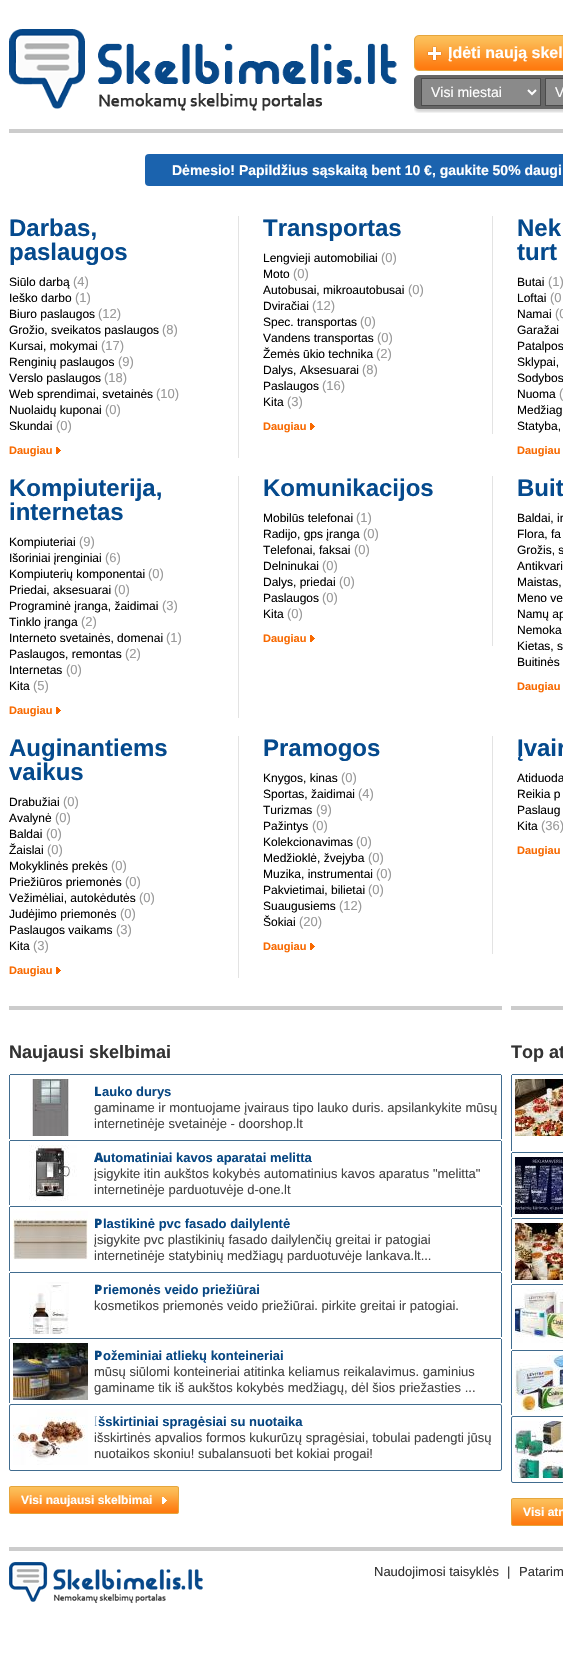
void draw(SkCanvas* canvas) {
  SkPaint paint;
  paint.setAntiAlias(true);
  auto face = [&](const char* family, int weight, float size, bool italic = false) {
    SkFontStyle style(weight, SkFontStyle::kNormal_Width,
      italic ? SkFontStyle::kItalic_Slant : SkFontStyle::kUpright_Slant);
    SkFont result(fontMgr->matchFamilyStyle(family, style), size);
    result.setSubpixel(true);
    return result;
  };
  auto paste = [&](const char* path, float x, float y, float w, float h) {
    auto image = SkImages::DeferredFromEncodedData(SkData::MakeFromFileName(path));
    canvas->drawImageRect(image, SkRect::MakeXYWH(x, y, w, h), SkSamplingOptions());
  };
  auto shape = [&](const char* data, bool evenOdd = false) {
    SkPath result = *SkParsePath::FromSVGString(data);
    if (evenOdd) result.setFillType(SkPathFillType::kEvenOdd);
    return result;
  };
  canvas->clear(0xffffffff);
  paint.setColor(0xffcccccc);
  canvas->drawRect(SkRect::MakeXYWH(9, 129, 554, 4), paint);
  paste("img/1.png", 9, 29, 388, 82);
  paste("img/2.png", 414, 35, 149, 36);
  paste("img/3.png", 414, 75, 149, 38);
  paint.setColor(0xff8a8a8a);
  canvas->drawRect(SkRect::MakeXYWH(421.5f, 78.5f, 119, 27), paint);
  paint.setStroke(true);
  paint.setStrokeWidth(1);
  paint.setColor(0xff4b4b4b);
  canvas->drawRect(SkRect::MakeXYWH(421.5f, 78.5f, 119, 27), paint);
  paint.setStrokeWidth(2);
  paint.setColor(0xffffffff);
  canvas->drawPath(shape("M528 90L532 94L536 90"), paint);
  paint.setStroke(false);
  paint.setColor(0xff8a8a8a);
  canvas->drawRect(SkRect::MakeXYWH(545.5f, 78.5f, 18, 27), paint);
  paint.setStroke(true);
  paint.setStrokeWidth(1);
  paint.setColor(0xff4b4b4b);
  canvas->drawRect(SkRect::MakeXYWH(545.5f, 78.5f, 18, 27), paint);
  paint.setStroke(false);
  paint.setColor(0xff1b63ae);
  canvas->drawRoundRect(SkRect::MakeXYWH(145, 154, 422, 32), 4, 4, paint);
  paint.setColor(0xffe3e3e3);
  canvas->drawRect(SkRect::MakeXYWH(238, 216, 1, 242), paint);
  paste("img/4.png", 56, 447, 5, 7);
  canvas->drawRect(SkRect::MakeXYWH(492, 216, 1, 218), paint);
  paste("img/4.png", 310, 423, 5, 7);
  canvas->drawRect(SkRect::MakeXYWH(238, 476, 1, 242), paint);
  paste("img/4.png", 56, 707, 5, 7);
  canvas->drawRect(SkRect::MakeXYWH(492, 476, 1, 170), paint);
  paste("img/4.png", 310, 635, 5, 7);
  canvas->drawRect(SkRect::MakeXYWH(238, 736, 1, 242), paint);
  paste("img/4.png", 56, 967, 5, 7);
  canvas->drawRect(SkRect::MakeXYWH(492, 736, 1, 218), paint);
  paste("img/4.png", 310, 943, 5, 7);
  {
    const struct { float x, y, w, h; SkColor color; } items[] = {
      {9, 1006, 493, 4, 0xffcccccc},
      {10, 1074, 491, 1, 0xff416c8f},
      {501, 1075, 1, 64, 0xff416c8f},
      {9, 1075, 1, 64, 0xff416c8f},
    };
    for (auto [x, y, w, h, color] : items) {
      paint.setColor(color);
      canvas->drawRect(SkRect::MakeXYWH(x, y, w, h), paint);
    }
  }
  paste("img/5.png", 30, 1079, 39, 57);
  {
    const struct { float x, y, w, h; SkColor color; } items[] = {
      {10, 1140, 491, 1, 0xff416c8f},
      {501, 1141, 1, 64, 0xff416c8f},
      {9, 1141, 1, 64, 0xff416c8f},
    };
    for (auto [x, y, w, h, color] : items) {
      paint.setColor(color);
      canvas->drawRect(SkRect::MakeXYWH(x, y, w, h), paint);
    }
  }
  paste("img/6.png", 29, 1145, 48, 56);
  {
    const struct { float x, y, w, h; SkColor color; } items[] = {
      {10, 1206, 491, 1, 0xff416c8f},
      {501, 1207, 1, 64, 0xff416c8f},
      {9, 1207, 1, 64, 0xff416c8f},
    };
    for (auto [x, y, w, h, color] : items) {
      paint.setColor(color);
      canvas->drawRect(SkRect::MakeXYWH(x, y, w, h), paint);
    }
  }
  paste("img/7.png", 13, 1211, 75, 49);
  {
    const struct { float x, y, w, h; SkColor color; } items[] = {
      {10, 1272, 491, 1, 0xff416c8f},
      {501, 1273, 1, 64, 0xff416c8f},
      {9, 1273, 1, 64, 0xff416c8f},
    };
    for (auto [x, y, w, h, color] : items) {
      paint.setColor(color);
      canvas->drawRect(SkRect::MakeXYWH(x, y, w, h), paint);
    }
  }
  paste("img/8.png", 29, 1282, 40, 52);
  {
    const struct { float x, y, w, h; SkColor color; } items[] = {
      {10, 1338, 491, 1, 0xff416c8f},
      {501, 1339, 1, 64, 0xff416c8f},
      {9, 1339, 1, 64, 0xff416c8f},
    };
    for (auto [x, y, w, h, color] : items) {
      paint.setColor(color);
      canvas->drawRect(SkRect::MakeXYWH(x, y, w, h), paint);
    }
  }
  paste("img/9.png", 13, 1343, 75, 57);
  paint.setStroke(true);
  canvas->drawRoundRect(SkRect::MakeXYWH(9.5f, 1404.5f, 492, 66), 1.5f, 1.5f, paint);
  paste("img/10.png", 13, 1409, 75, 56);
  paste("img/11.png", 177, 1486, 2, 28);
  paste("img/12.png", 9, 1486, 168, 28);
  paste("img/13.png", 162, 1497, 5, 7);
  paint.setStroke(false);
  {
    const struct { float x, y, w, h; SkColor color; } items[] = {
      {511, 1006, 52, 4, 0xffcccccc},
      {512, 1074, 51, 1, 0xff416c8f},
      {511, 1075, 1, 76, 0xff416c8f},
    };
    for (auto [x, y, w, h, color] : items) {
      paint.setColor(color);
      canvas->drawRect(SkRect::MakeXYWH(x, y, w, h), paint);
    }
  }
  paste("img/14.png", 515, 1079, 48, 57);
  canvas->drawRect(SkRect::MakeXYWH(512, 1152, 51, 1), paint);
  canvas->drawRect(SkRect::MakeXYWH(511, 1153, 1, 64), paint);
  paste("img/15.png", 515, 1157, 48, 57);
  canvas->drawRect(SkRect::MakeXYWH(512, 1218, 51, 1), paint);
  canvas->drawRect(SkRect::MakeXYWH(511, 1219, 1, 64), paint);
  paste("img/16.png", 515, 1223, 48, 57);
  canvas->drawRect(SkRect::MakeXYWH(512, 1284, 51, 1), paint);
  canvas->drawRect(SkRect::MakeXYWH(511, 1285, 1, 64), paint);
  paste("img/17.png", 515, 1289, 48, 54);
  canvas->drawRect(SkRect::MakeXYWH(512, 1350, 51, 1), paint);
  canvas->drawRect(SkRect::MakeXYWH(511, 1351, 1, 64), paint);
  paste("img/18.png", 515, 1355, 48, 57);
  paint.setStroke(true);
  canvas->drawRoundRect(SkRect::MakeXYWH(511.5f, 1416.5f, 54, 66), 1.5f, 1.5f, paint);
  paste("img/19.png", 515, 1421, 48, 57);
  paste("img/20.png", 511, 1498, 52, 28);
  paint.setStroke(false);
  paint.setColor(0xffcccccc);
  canvas->drawRect(SkRect::MakeXYWH(9, 1547, 554, 4), paint);
  paste("img/21.png", 9, 1562, 194, 41);
  auto f0 = face("Liberation Sans", 700, 16);
  paint.setColor(0xffffffff);
  canvas->drawString("Įdėti naują skel", 448, 58, f0, paint);
  auto f1 = face("Liberation Sans", 400, 14);
  canvas->drawString("Visi miestai", 431, 97, f1, paint);
  canvas->drawString("V", 555, 97, f1, paint);
  auto f2 = face("Liberation Sans", 700, 14);
  canvas->drawString("Dėmesio! Papildžius sąskaitą bent 10 €, gaukite 50% daugi", 172, 175, f2, paint);
  auto f3 = face("Liberation Sans", 700, 24);
  paint.setColor(0xff054a8d);
  canvas->drawString("Darbas,", 9, 236, f3, paint);
  canvas->drawString("paslaugos", 9, 260, f3, paint);
  auto f4 = face("Liberation Sans", 400, 12);
  paint.setColor(0xff000000);
  canvas->drawString("Siūlo darbą", 9, 286, f4, paint);
  auto f5 = face("Liberation Sans", 400, 13);
  paint.setColor(0xff999999);
  canvas->drawString("(4)", 73, 286, f5, paint);
  paint.setColor(0xff000000);
  canvas->drawString("Ieško darbo", 9, 302, f4, paint);
  paint.setColor(0xff999999);
  canvas->drawString("(1)", 75, 302, f5, paint);
  paint.setColor(0xff000000);
  canvas->drawString("Biuro paslaugos", 9, 318, f4, paint);
  paint.setColor(0xff999999);
  canvas->drawString("(12)", 98, 318, f5, paint);
  paint.setColor(0xff000000);
  canvas->drawString("Grožio, sveikatos paslaugos", 9, 334, f4, paint);
  paint.setColor(0xff999999);
  canvas->drawString("(8)", 162, 334, f5, paint);
  paint.setColor(0xff000000);
  canvas->drawString("Kursai, mokymai", 9, 350, f4, paint);
  paint.setColor(0xff999999);
  canvas->drawString("(17)", 101, 350, f5, paint);
  paint.setColor(0xff000000);
  canvas->drawString("Renginių paslaugos", 9, 366, f4, paint);
  paint.setColor(0xff999999);
  canvas->drawString("(9)", 118, 366, f5, paint);
  paint.setColor(0xff000000);
  canvas->drawString("Verslo paslaugos", 9, 382, f4, paint);
  paint.setColor(0xff999999);
  canvas->drawString("(18)", 104, 382, f5, paint);
  paint.setColor(0xff000000);
  canvas->drawString("Web sprendimai, svetainės", 9, 398, f4, paint);
  paint.setColor(0xff999999);
  canvas->drawString("(10)", 156, 398, f5, paint);
  paint.setColor(0xff000000);
  canvas->drawString("Nuolaidų kuponai", 9, 414, f4, paint);
  paint.setColor(0xff999999);
  canvas->drawString("(0)", 105, 414, f5, paint);
  paint.setColor(0xff000000);
  canvas->drawString("Skundai", 9, 430, f4, paint);
  paint.setColor(0xff999999);
  canvas->drawString("(0)", 56, 430, f5, paint);
  auto f6 = face("Liberation Sans", 700, 11);
  paint.setColor(0xfff86900);
  canvas->drawString("Daugiau", 9, 454, f6, paint);
  paint.setColor(0xff054a8d);
  canvas->drawString("Transportas", 263, 236, f3, paint);
  paint.setColor(0xff000000);
  canvas->drawString("Lengvieji automobiliai", 263, 262, f4, paint);
  paint.setColor(0xff999999);
  canvas->drawString("(0)", 381, 262, f5, paint);
  paint.setColor(0xff000000);
  canvas->drawString("Moto", 263, 278, f4, paint);
  paint.setColor(0xff999999);
  canvas->drawString("(0)", 293, 278, f5, paint);
  paint.setColor(0xff000000);
  canvas->drawString("Autobusai, mikroautobusai", 263, 294, f4, paint);
  paint.setColor(0xff999999);
  canvas->drawString("(0)", 408, 294, f5, paint);
  paint.setColor(0xff000000);
  canvas->drawString("Dviračiai", 263, 310, f4, paint);
  paint.setColor(0xff999999);
  canvas->drawString("(12)", 312, 310, f5, paint);
  paint.setColor(0xff000000);
  canvas->drawString("Spec. transportas", 263, 326, f4, paint);
  paint.setColor(0xff999999);
  canvas->drawString("(0)", 360, 326, f5, paint);
  paint.setColor(0xff000000);
  canvas->drawString("Vandens transportas", 263, 342, f4, paint);
  paint.setColor(0xff999999);
  canvas->drawString("(0)", 377, 342, f5, paint);
  paint.setColor(0xff000000);
  canvas->drawString("Žemės ūkio technika", 263, 358, f4, paint);
  paint.setColor(0xff999999);
  canvas->drawString("(2)", 376, 358, f5, paint);
  paint.setColor(0xff000000);
  canvas->drawString("Dalys, Aksesuarai", 263, 374, f4, paint);
  paint.setColor(0xff999999);
  canvas->drawString("(8)", 362, 374, f5, paint);
  paint.setColor(0xff000000);
  canvas->drawString("Paslaugos", 263, 390, f4, paint);
  paint.setColor(0xff999999);
  canvas->drawString("(16)", 322, 390, f5, paint);
  paint.setColor(0xff000000);
  canvas->drawString("Kita", 263, 406, f4, paint);
  paint.setColor(0xff999999);
  canvas->drawString("(3)", 287, 406, f5, paint);
  paint.setColor(0xfff86900);
  canvas->drawString("Daugiau", 263, 430, f6, paint);
  paint.setColor(0xff054a8d);
  canvas->drawString("Nek", 517, 236, f3, paint);
  canvas->drawString("turt", 517, 260, f3, paint);
  paint.setColor(0xff000000);
  canvas->drawString("Butai", 517, 286, f4, paint);
  paint.setColor(0xff999999);
  canvas->drawString("(1)", 548, 286, f5, paint);
  paint.setColor(0xff000000);
  canvas->drawString("Loftai", 517, 302, f4, paint);
  paint.setColor(0xff999999);
  canvas->drawString("(0", 550, 302, f5, paint);
  paint.setColor(0xff000000);
  canvas->drawString("Namai", 517, 318, f4, paint);
  paint.setColor(0xff999999);
  canvas->drawString("(0", 555, 318, f5, paint);
  paint.setColor(0xff000000);
  {
    const struct { const char* s; float x, y; } items[] = {
      {"Garažai", 517, 334},
      {"Patalpos", 517, 350},
      {"Sklypai,", 517, 366},
      {"Sodybos", 517, 382},
      {"Nuoma", 517, 398},
    };
    for (auto [s, x, y] : items) {
      canvas->drawString(s, x, y, f4, paint);
    }
  }
  paint.setColor(0xff999999);
  canvas->drawString("(", 559, 398, f5, paint);
  paint.setColor(0xff000000);
  canvas->drawString("Medžiag", 517, 414, f4, paint);
  canvas->drawString("Statyba,", 517, 430, f4, paint);
  paint.setColor(0xfff86900);
  canvas->drawString("Daugiau", 517, 454, f6, paint);
  paint.setColor(0xff054a8d);
  canvas->drawString("Kompiuterija,", 9, 496, f3, paint);
  canvas->drawString("internetas", 9, 520, f3, paint);
  paint.setColor(0xff000000);
  canvas->drawString("Kompiuteriai", 9, 546, f4, paint);
  paint.setColor(0xff999999);
  canvas->drawString("(9)", 79, 546, f5, paint);
  paint.setColor(0xff000000);
  canvas->drawString("Išoriniai įrenginiai", 9, 562, f4, paint);
  paint.setColor(0xff999999);
  canvas->drawString("(6)", 105, 562, f5, paint);
  paint.setColor(0xff000000);
  canvas->drawString("Kompiuterių komponentai", 9, 578, f4, paint);
  paint.setColor(0xff999999);
  canvas->drawString("(0)", 148, 578, f5, paint);
  paint.setColor(0xff000000);
  canvas->drawString("Priedai, aksesuarai", 9, 594, f4, paint);
  paint.setColor(0xff999999);
  canvas->drawString("(0)", 114, 594, f5, paint);
  paint.setColor(0xff000000);
  canvas->drawString("Programinė įranga, žaidimai", 9, 610, f4, paint);
  paint.setColor(0xff999999);
  canvas->drawString("(3)", 162, 610, f5, paint);
  paint.setColor(0xff000000);
  canvas->drawString("Tinklo įranga", 9, 626, f4, paint);
  paint.setColor(0xff999999);
  canvas->drawString("(2)", 81, 626, f5, paint);
  paint.setColor(0xff000000);
  canvas->drawString("Interneto svetainės, domenai", 9, 642, f4, paint);
  paint.setColor(0xff999999);
  canvas->drawString("(1)", 166, 642, f5, paint);
  paint.setColor(0xff000000);
  canvas->drawString("Paslaugos, remontas", 9, 658, f4, paint);
  paint.setColor(0xff999999);
  canvas->drawString("(2)", 125, 658, f5, paint);
  paint.setColor(0xff000000);
  canvas->drawString("Internetas", 9, 674, f4, paint);
  paint.setColor(0xff999999);
  canvas->drawString("(0)", 66, 674, f5, paint);
  paint.setColor(0xff000000);
  canvas->drawString("Kita", 9, 690, f4, paint);
  paint.setColor(0xff999999);
  canvas->drawString("(5)", 33, 690, f5, paint);
  paint.setColor(0xfff86900);
  canvas->drawString("Daugiau", 9, 714, f6, paint);
  paint.setColor(0xff054a8d);
  canvas->drawString("Komunikacijos", 263, 496, f3, paint);
  paint.setColor(0xff000000);
  canvas->drawString("Mobilūs telefonai", 263, 522, f4, paint);
  paint.setColor(0xff999999);
  canvas->drawString("(1)", 356, 522, f5, paint);
  paint.setColor(0xff000000);
  canvas->drawString("Radijo, gps įranga", 263, 538, f4, paint);
  paint.setColor(0xff999999);
  canvas->drawString("(0)", 363, 538, f5, paint);
  paint.setColor(0xff000000);
  canvas->drawString("Telefonai, faksai", 263, 554, f4, paint);
  paint.setColor(0xff999999);
  canvas->drawString("(0)", 354, 554, f5, paint);
  paint.setColor(0xff000000);
  canvas->drawString("Delninukai", 263, 570, f4, paint);
  paint.setColor(0xff999999);
  canvas->drawString("(0)", 322, 570, f5, paint);
  paint.setColor(0xff000000);
  canvas->drawString("Dalys, priedai", 263, 586, f4, paint);
  paint.setColor(0xff999999);
  canvas->drawString("(0)", 339, 586, f5, paint);
  paint.setColor(0xff000000);
  canvas->drawString("Paslaugos", 263, 602, f4, paint);
  paint.setColor(0xff999999);
  canvas->drawString("(0)", 322, 602, f5, paint);
  paint.setColor(0xff000000);
  canvas->drawString("Kita", 263, 618, f4, paint);
  paint.setColor(0xff999999);
  canvas->drawString("(0)", 287, 618, f5, paint);
  paint.setColor(0xfff86900);
  canvas->drawString("Daugiau", 263, 642, f6, paint);
  paint.setColor(0xff054a8d);
  canvas->drawString("Buit", 517, 496, f3, paint);
  paint.setColor(0xff000000);
  {
    const struct { const char* s; float x, y; } items[] = {
      {"Baldai, in", 517, 522},
      {"Flora, fa", 517, 538},
      {"Grožis, s", 517, 554},
      {"Antikvari", 517, 570},
      {"Maistas,", 517, 586},
      {"Meno ve", 517, 602},
      {"Namų ap", 517, 618},
      {"Nemoka", 517, 634},
      {"Kietas, s", 517, 650},
      {"Buitinės", 517, 666},
    };
    for (auto [s, x, y] : items) {
      canvas->drawString(s, x, y, f4, paint);
    }
  }
  paint.setColor(0xfff86900);
  canvas->drawString("Daugiau", 517, 690, f6, paint);
  paint.setColor(0xff054a8d);
  canvas->drawString("Auginantiems", 9, 756, f3, paint);
  canvas->drawString("vaikus", 9, 780, f3, paint);
  paint.setColor(0xff000000);
  canvas->drawString("Drabužiai", 9, 806, f4, paint);
  paint.setColor(0xff999999);
  canvas->drawString("(0)", 63, 806, f5, paint);
  paint.setColor(0xff000000);
  canvas->drawString("Avalynė", 9, 822, f4, paint);
  paint.setColor(0xff999999);
  canvas->drawString("(0)", 55, 822, f5, paint);
  paint.setColor(0xff000000);
  canvas->drawString("Baldai", 9, 838, f4, paint);
  paint.setColor(0xff999999);
  canvas->drawString("(0)", 46, 838, f5, paint);
  paint.setColor(0xff000000);
  canvas->drawString("Žaislai", 9, 854, f4, paint);
  paint.setColor(0xff999999);
  canvas->drawString("(0)", 47, 854, f5, paint);
  paint.setColor(0xff000000);
  canvas->drawString("Mokyklinės prekės", 9, 870, f4, paint);
  paint.setColor(0xff999999);
  canvas->drawString("(0)", 111, 870, f5, paint);
  paint.setColor(0xff000000);
  canvas->drawString("Priežiūros priemonės", 9, 886, f4, paint);
  paint.setColor(0xff999999);
  canvas->drawString("(0)", 125, 886, f5, paint);
  paint.setColor(0xff000000);
  canvas->drawString("Vežimėliai, autokėdutės", 9, 902, f4, paint);
  paint.setColor(0xff999999);
  canvas->drawString("(0)", 139, 902, f5, paint);
  paint.setColor(0xff000000);
  canvas->drawString("Judėjimo priemonės", 9, 918, f4, paint);
  paint.setColor(0xff999999);
  canvas->drawString("(0)", 120, 918, f5, paint);
  paint.setColor(0xff000000);
  canvas->drawString("Paslaugos vaikams", 9, 934, f4, paint);
  paint.setColor(0xff999999);
  canvas->drawString("(3)", 116, 934, f5, paint);
  paint.setColor(0xff000000);
  canvas->drawString("Kita", 9, 950, f4, paint);
  paint.setColor(0xff999999);
  canvas->drawString("(3)", 33, 950, f5, paint);
  paint.setColor(0xfff86900);
  canvas->drawString("Daugiau", 9, 974, f6, paint);
  paint.setColor(0xff054a8d);
  canvas->drawString("Pramogos", 263, 756, f3, paint);
  paint.setColor(0xff000000);
  canvas->drawString("Knygos, kinas", 263, 782, f4, paint);
  paint.setColor(0xff999999);
  canvas->drawString("(0)", 341, 782, f5, paint);
  paint.setColor(0xff000000);
  canvas->drawString("Sportas, žaidimai", 263, 798, f4, paint);
  paint.setColor(0xff999999);
  canvas->drawString("(4)", 358, 798, f5, paint);
  paint.setColor(0xff000000);
  canvas->drawString("Turizmas", 263, 814, f4, paint);
  paint.setColor(0xff999999);
  canvas->drawString("(9)", 316, 814, f5, paint);
  paint.setColor(0xff000000);
  canvas->drawString("Pažintys", 263, 830, f4, paint);
  paint.setColor(0xff999999);
  canvas->drawString("(0)", 312, 830, f5, paint);
  paint.setColor(0xff000000);
  canvas->drawString("Kolekcionavimas", 263, 846, f4, paint);
  paint.setColor(0xff999999);
  canvas->drawString("(0)", 356, 846, f5, paint);
  paint.setColor(0xff000000);
  canvas->drawString("Medžioklė, žvejyba", 263, 862, f4, paint);
  paint.setColor(0xff999999);
  canvas->drawString("(0)", 368, 862, f5, paint);
  paint.setColor(0xff000000);
  canvas->drawString("Muzika, instrumentai", 263, 878, f4, paint);
  paint.setColor(0xff999999);
  canvas->drawString("(0)", 376, 878, f5, paint);
  paint.setColor(0xff000000);
  canvas->drawString("Pakvietimai, bilietai", 263, 894, f4, paint);
  paint.setColor(0xff999999);
  canvas->drawString("(0)", 368, 894, f5, paint);
  paint.setColor(0xff000000);
  canvas->drawString("Suaugusiems", 263, 910, f4, paint);
  paint.setColor(0xff999999);
  canvas->drawString("(12)", 339, 910, f5, paint);
  paint.setColor(0xff000000);
  canvas->drawString("Šokiai", 263, 926, f4, paint);
  paint.setColor(0xff999999);
  canvas->drawString("(20)", 299, 926, f5, paint);
  paint.setColor(0xfff86900);
  canvas->drawString("Daugiau", 263, 950, f6, paint);
  paint.setColor(0xff054a8d);
  canvas->drawString("Įvair", 517, 756, f3, paint);
  paint.setColor(0xff000000);
  {
    const struct { const char* s; float x, y; } items[] = {
      {"Atiduoda", 517, 782},
      {"Reikia p", 517, 798},
      {"Paslaug", 517, 814},
      {"Kita", 517, 830},
    };
    for (auto [s, x, y] : items) {
      canvas->drawString(s, x, y, f4, paint);
    }
  }
  paint.setColor(0xff999999);
  canvas->drawString("(36)", 541, 830, f5, paint);
  paint.setColor(0xfff86900);
  canvas->drawString("Daugiau", 517, 854, f6, paint);
  auto f7 = face("Liberation Sans", 700, 18);
  paint.setColor(0xff333333);
  canvas->drawString("Naujausi skelbimai", 9, 1058, f7, paint);
  auto f8 = face("Noto Sans", 900, 13);
  paint.setColor(0xff084782);
  canvas->drawString("L", 94, 1096, f8, paint);
  auto f9 = face("Liberation Sans", 700, 13);
  canvas->drawString("auko durys", 102, 1096, f9, paint);
  paint.setColor(0xff444444);
  canvas->drawString("gaminame ir montuojame įvairaus tipo lauko duris. apsilankykite mūsų", 94, 1112, f5, paint);
  canvas->drawString("internetinėje svetainėje - doorshop.lt", 94, 1128, f5, paint);
  paint.setColor(0xff084782);
  canvas->drawString("A", 94, 1162, f8, paint);
  canvas->drawString("utomatiniai kavos aparatai melitta", 103, 1162, f9, paint);
  paint.setColor(0xff444444);
  canvas->drawString("įsigykite itin aukštos kokybės automatinius kavos aparatus \"melitta\"", 94, 1178, f5, paint);
  canvas->drawString("internetinėje parduotuvėje d-one.lt", 94, 1194, f5, paint);
  paint.setColor(0xff084782);
  canvas->drawString("P", 94, 1228, f8, paint);
  canvas->drawString("lastikinė pvc fasado dailylentė", 103, 1228, f9, paint);
  paint.setColor(0xff444444);
  canvas->drawString("įsigykite pvc plastikinių fasado dailylenčių greitai ir patogiai", 94, 1244, f5, paint);
  canvas->drawString("internetinėje statybinių medžiagų parduotuvėje lankava.lt...", 94, 1260, f5, paint);
  paint.setColor(0xff084782);
  canvas->drawString("P", 94, 1294, f8, paint);
  canvas->drawString("riemonės veido priežiūrai", 103, 1294, f9, paint);
  paint.setColor(0xff444444);
  canvas->drawString("kosmetikos priemonės veido priežiūrai. pirkite greitai ir patogiai.", 94, 1310, f5, paint);
  paint.setColor(0xff084782);
  canvas->drawString("P", 94, 1360, f8, paint);
  canvas->drawString("ožeminiai atliekų konteineriai", 103, 1360, f9, paint);
  paint.setColor(0xff444444);
  canvas->drawString("mūsų siūlomi konteineriai atitinka keliamus reikalavimus. gaminius", 94, 1376, f5, paint);
  canvas->drawString("gaminame tik iš aukštos kokybės medžiagų, dėl šios priežasties ...", 94, 1392, f5, paint);
  auto f10 = face("Noto Sans", 100, 13);
  paint.setColor(0xff084782);
  canvas->drawString("I", 94, 1426, f10, paint);
  canvas->drawString("šskirtiniai spragėsiai su nuotaika", 98, 1426, f9, paint);
  paint.setColor(0xff444444);
  canvas->drawString("išskirtinės apvalios formos kukurūzų spragėsiai, tobulai padengti jūsų", 94, 1442, f5, paint);
  canvas->drawString("nuotaikos skoniu! subalansuoti bet kokiai progai!", 94, 1458, f5, paint);
  auto f11 = face("Liberation Sans", 700, 12);
  paint.setColor(0xffffffff);
  canvas->drawString("Visi naujausi skelbimai", 21, 1504, f11, paint);
  paint.setColor(0xff333333);
  canvas->drawString("Top at", 511, 1058, f7, paint);
  paint.setColor(0xffffffff);
  canvas->drawString("Visi atn", 523, 1516, f11, paint);
  paint.setColor(0xff333333);
  {
    const struct { const char* s; float x, y; } items[] = {
      {"Naudojimosi taisyklės", 374, 1576},
      {"|", 507, 1576},
      {"Patarim", 519, 1576},
    };
    for (auto [s, x, y] : items) {
      canvas->drawString(s, x, y, f5, paint);
    }
  }
}
